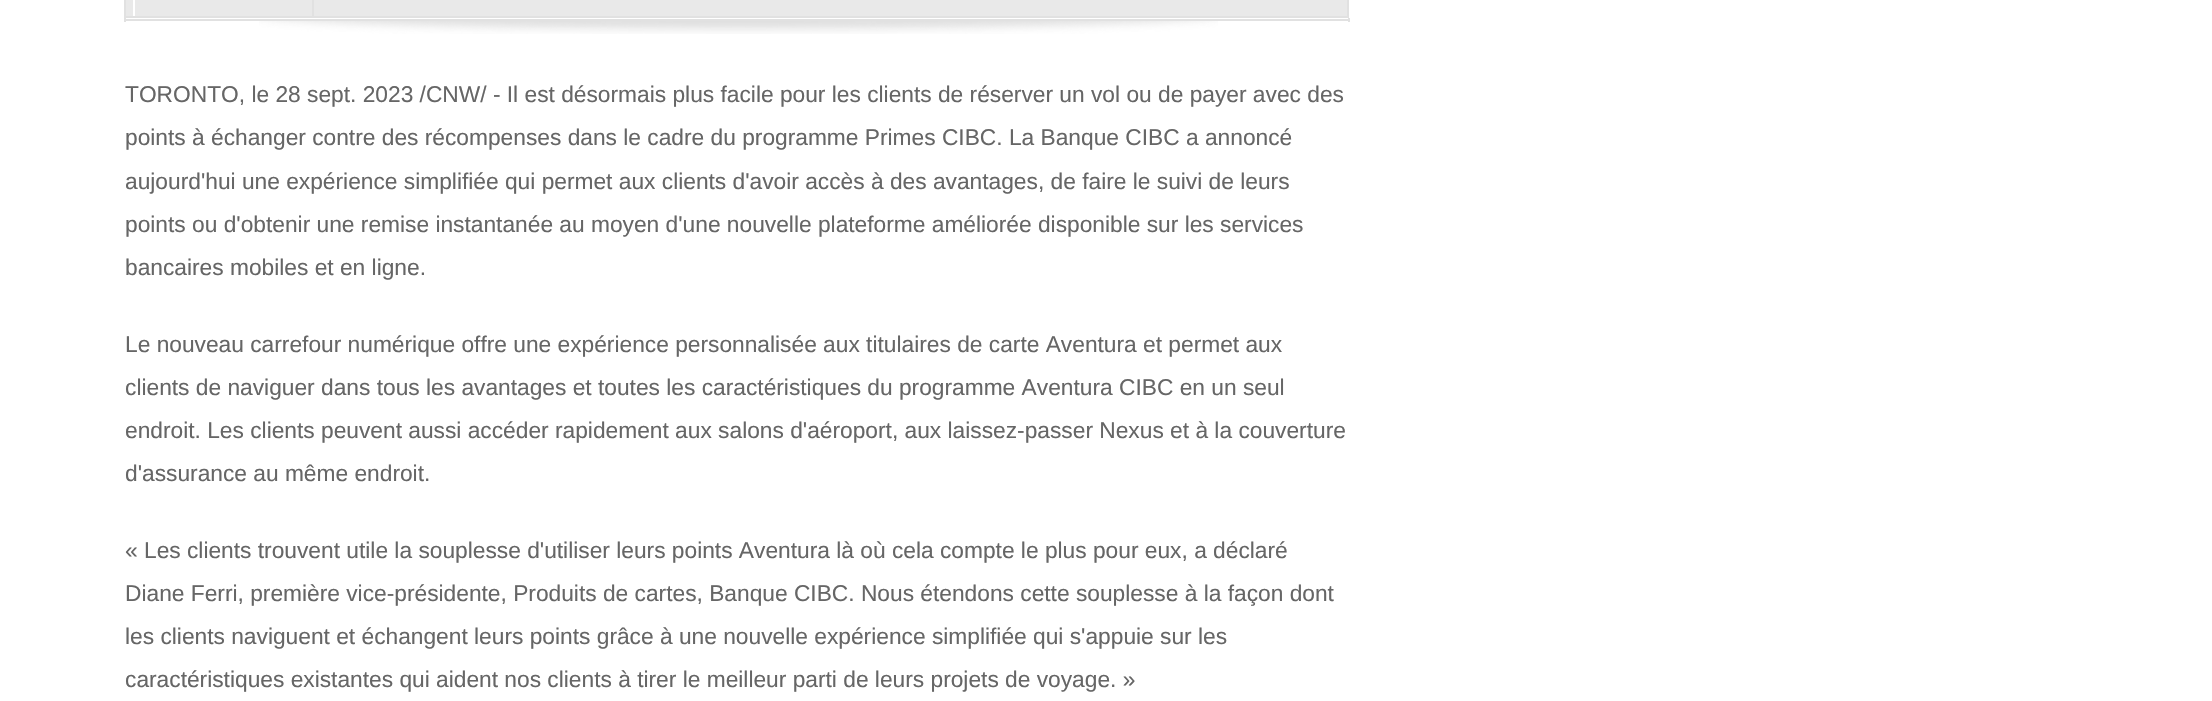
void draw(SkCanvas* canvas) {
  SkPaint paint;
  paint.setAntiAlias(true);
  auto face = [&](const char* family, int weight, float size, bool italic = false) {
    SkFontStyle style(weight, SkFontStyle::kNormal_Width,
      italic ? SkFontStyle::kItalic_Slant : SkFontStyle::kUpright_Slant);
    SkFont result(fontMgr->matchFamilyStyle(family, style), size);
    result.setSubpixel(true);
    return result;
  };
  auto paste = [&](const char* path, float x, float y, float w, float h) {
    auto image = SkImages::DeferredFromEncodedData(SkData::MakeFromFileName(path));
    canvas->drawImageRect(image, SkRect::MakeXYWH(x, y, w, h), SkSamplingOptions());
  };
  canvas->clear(0xffffffff);
  paste("img/1.png", 259, 21, 959, 13);
  paint.setColor(0xffe9e9e9);
  canvas->drawRect(SkRect::MakeXYWH(125, -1, 1223, 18), paint);
  paint.setStroke(true);
  paint.setStrokeWidth(2);
  paint.setColor(0xffe1e1e1);
  canvas->drawRect(SkRect::MakeXYWH(125, -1, 1223, 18), paint);
  paint.setStroke(false);
  {
    const struct { float x, y, w, h; SkColor color; } items[] = {
      {312, 0, 2, 16, 0xffe1e1e1},
      {133, 0, 2, 16, 0xffffffff},
      {1348, 18, 2, 4, 0xffe1e1e1},
      {124, 19, 1225, 2, 0xffe1e1e1},
      {124, 18, 2, 4, 0xffe1e1e1},
    };
    for (auto [x, y, w, h, color] : items) {
      paint.setColor(color);
      canvas->drawRect(SkRect::MakeXYWH(x, y, w, h), paint);
    }
  }
  auto f0 = face("Liberation Sans", 400, 22.75f);
  paint.setColor(0xff666666);
  {
    const struct { const char* s; float x, y; } items[] = {
      {"TORONTO, le 28 sept. 2023 /CNW/ - Il est désormais plus facile pour les clients de réserver un vol ou de payer avec des", 125, 102},
      {"points à échanger contre des récompenses dans le cadre du programme Primes CIBC. La Banque CIBC a annoncé", 125, 145},
      {"aujourd'hui une expérience simplifiée qui permet aux clients d'avoir accès à des avantages, de faire le suivi de leurs", 125, 189},
      {"points ou d'obtenir une remise instantanée au moyen d'une nouvelle plateforme améliorée disponible sur les services", 125, 232},
      {"bancaires mobiles et en ligne.", 125, 275},
      {"Le nouveau carrefour numérique offre une expérience personnalisée aux titulaires de carte Aventura et permet aux", 125, 352},
      {"clients de naviguer dans tous les avantages et toutes les caractéristiques du programme Aventura CIBC en un seul", 125, 395},
      {"endroit. Les clients peuvent aussi accéder rapidement aux salons d'aéroport, aux laissez-passer Nexus et à la couverture", 125, 438},
      {"d'assurance au même endroit.", 125, 481},
      {"« Les clients trouvent utile la souplesse d'utiliser leurs points Aventura là où cela compte le plus pour eux, a déclaré", 125, 558},
      {"Diane Ferri, première vice-présidente, Produits de cartes, Banque CIBC. Nous étendons cette souplesse à la façon dont", 125, 601},
      {"les clients naviguent et échangent leurs points grâce à une nouvelle expérience simplifiée qui s'appuie sur les", 125, 644},
      {"caractéristiques existantes qui aident nos clients à tirer le meilleur parti de leurs projets de voyage. »", 125, 687},
    };
    for (auto [s, x, y] : items) {
      canvas->drawString(s, x, y, f0, paint);
    }
  }
}
